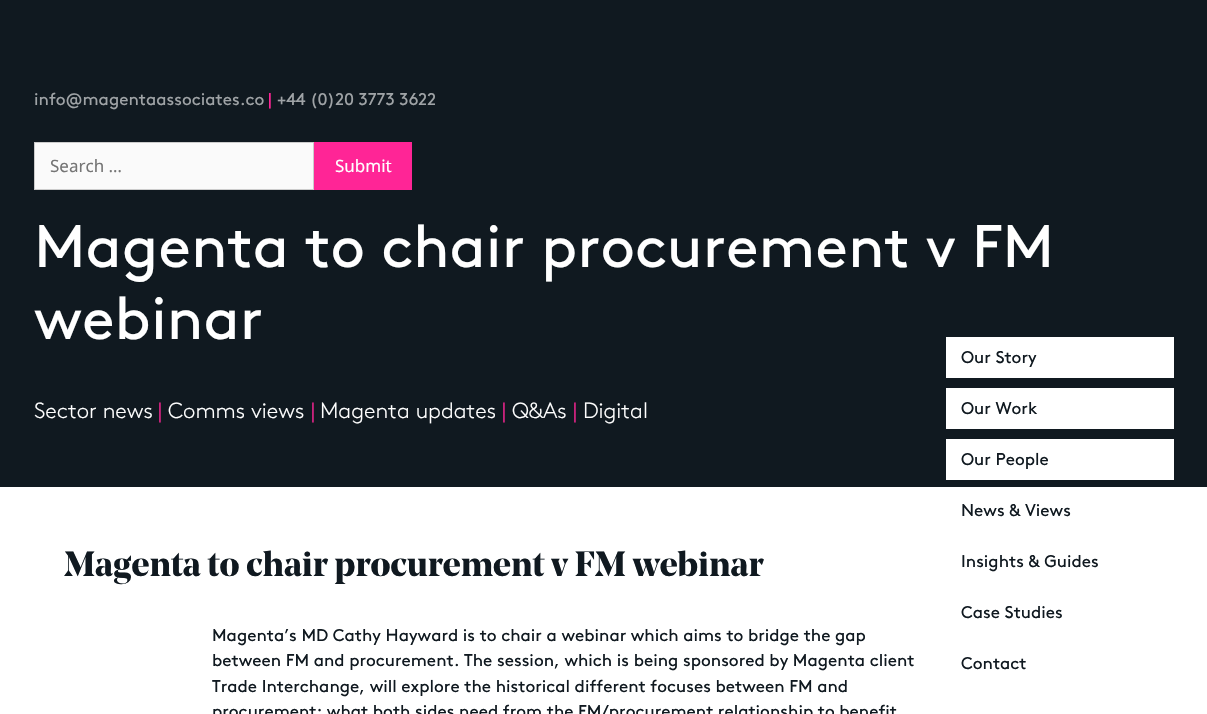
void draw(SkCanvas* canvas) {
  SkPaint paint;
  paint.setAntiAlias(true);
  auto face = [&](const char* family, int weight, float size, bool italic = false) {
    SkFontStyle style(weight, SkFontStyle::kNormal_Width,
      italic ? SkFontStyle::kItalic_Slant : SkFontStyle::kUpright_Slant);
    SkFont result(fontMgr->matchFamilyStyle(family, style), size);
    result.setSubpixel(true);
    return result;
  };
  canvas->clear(0xffffffff);
  paint.setColor(0xff101920);
  canvas->drawRect(SkRect::MakeXYWH(0, 0, 1207, 487), paint);
  paint.setColor(0xfffafafa);
  canvas->drawRect(SkRect::MakeXYWH(34.5f, 142.5f, 279, 47), paint);
  paint.setStroke(true);
  paint.setStrokeWidth(1);
  paint.setColor(0xffcccccc);
  canvas->drawRect(SkRect::MakeXYWH(34.5f, 142.5f, 279, 47), paint);
  paint.setStroke(false);
  {
    const struct { float x, y, w, h; SkColor color; } items[] = {
      {314, 142, 98, 48, 0xffff2596},
      {946, 337, 228, 41, 0xffffffff},
      {946, 388, 228, 41, 0xffffffff},
      {946, 439, 228, 41, 0xffffffff},
    };
    for (auto [x, y, w, h, color] : items) {
      paint.setColor(color);
      canvas->drawRect(SkRect::MakeXYWH(x, y, w, h), paint);
    }
  }
  auto f0 = face("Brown", 400, 17);
  paint.setColor(0xff9fa3a6);
  canvas->drawString("info@magentaassociates.co", 34, 105, f0, paint);
  paint.setColor(0xffff2596);
  canvas->drawString("|", 268, 105, f0, paint);
  paint.setColor(0xff9fa3a6);
  canvas->drawString("+44 (0)20 3773 3622", 277, 105, f0, paint);
  auto f1 = face("Noto Sans", 400, 17);
  paint.setColor(0xff757575);
  canvas->drawString("Search …", 50, 172, f1, paint);
  paint.setColor(0xffffffff);
  canvas->drawString("Submit", 335, 172, f1, paint);
  auto f2 = face("Brown", 400, 60);
  canvas->drawString("Magenta to chair procurement v FM", 34, 267, f2, paint);
  canvas->drawString("webinar", 34, 339, f2, paint);
  auto f3 = face("Brown", 300, 22);
  canvas->drawString("Sector news", 34, 418, f3, paint);
  paint.setColor(0xffff2596);
  canvas->drawString("|", 158, 418, f3, paint);
  paint.setColor(0xffffffff);
  canvas->drawString("Comms views", 168, 418, f3, paint);
  paint.setColor(0xffff2596);
  canvas->drawString("|", 311, 418, f3, paint);
  paint.setColor(0xffffffff);
  canvas->drawString("Magenta updates", 320, 418, f3, paint);
  paint.setColor(0xffff2596);
  canvas->drawString("|", 502, 418, f3, paint);
  paint.setColor(0xffffffff);
  canvas->drawString("Q&As", 512, 418, f3, paint);
  paint.setColor(0xffff2596);
  canvas->drawString("|", 573, 418, f3, paint);
  paint.setColor(0xffffffff);
  canvas->drawString("Digital", 583, 418, f3, paint);
  auto f4 = face("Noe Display", 700, 35);
  paint.setColor(0xff101920);
  canvas->drawString("Magenta to chair procurement v FM webinar", 64, 576, f4, paint);
  {
    const struct { const char* s; float x, y; } items[] = {
      {"Magenta’s MD Cathy Hayward is to chair a webinar which aims to bridge the gap", 212, 641},
      {"between FM and procurement. The session, which is being sponsored by Magenta client", 212, 666},
      {"Trade Interchange, will explore the historical different focuses between FM and", 212, 692},
      {"procurement; what both sides need from the FM/procurement relationship to benefit", 212, 717},
      {"Our Story", 961, 363},
      {"Our Work", 961, 414},
      {"Our People", 961, 465},
      {"News & Views", 961, 516},
      {"Insights & Guides", 961, 567},
      {"Case Studies", 961, 618},
      {"Contact", 961, 669},
    };
    for (auto [s, x, y] : items) {
      canvas->drawString(s, x, y, f0, paint);
    }
  }
}
